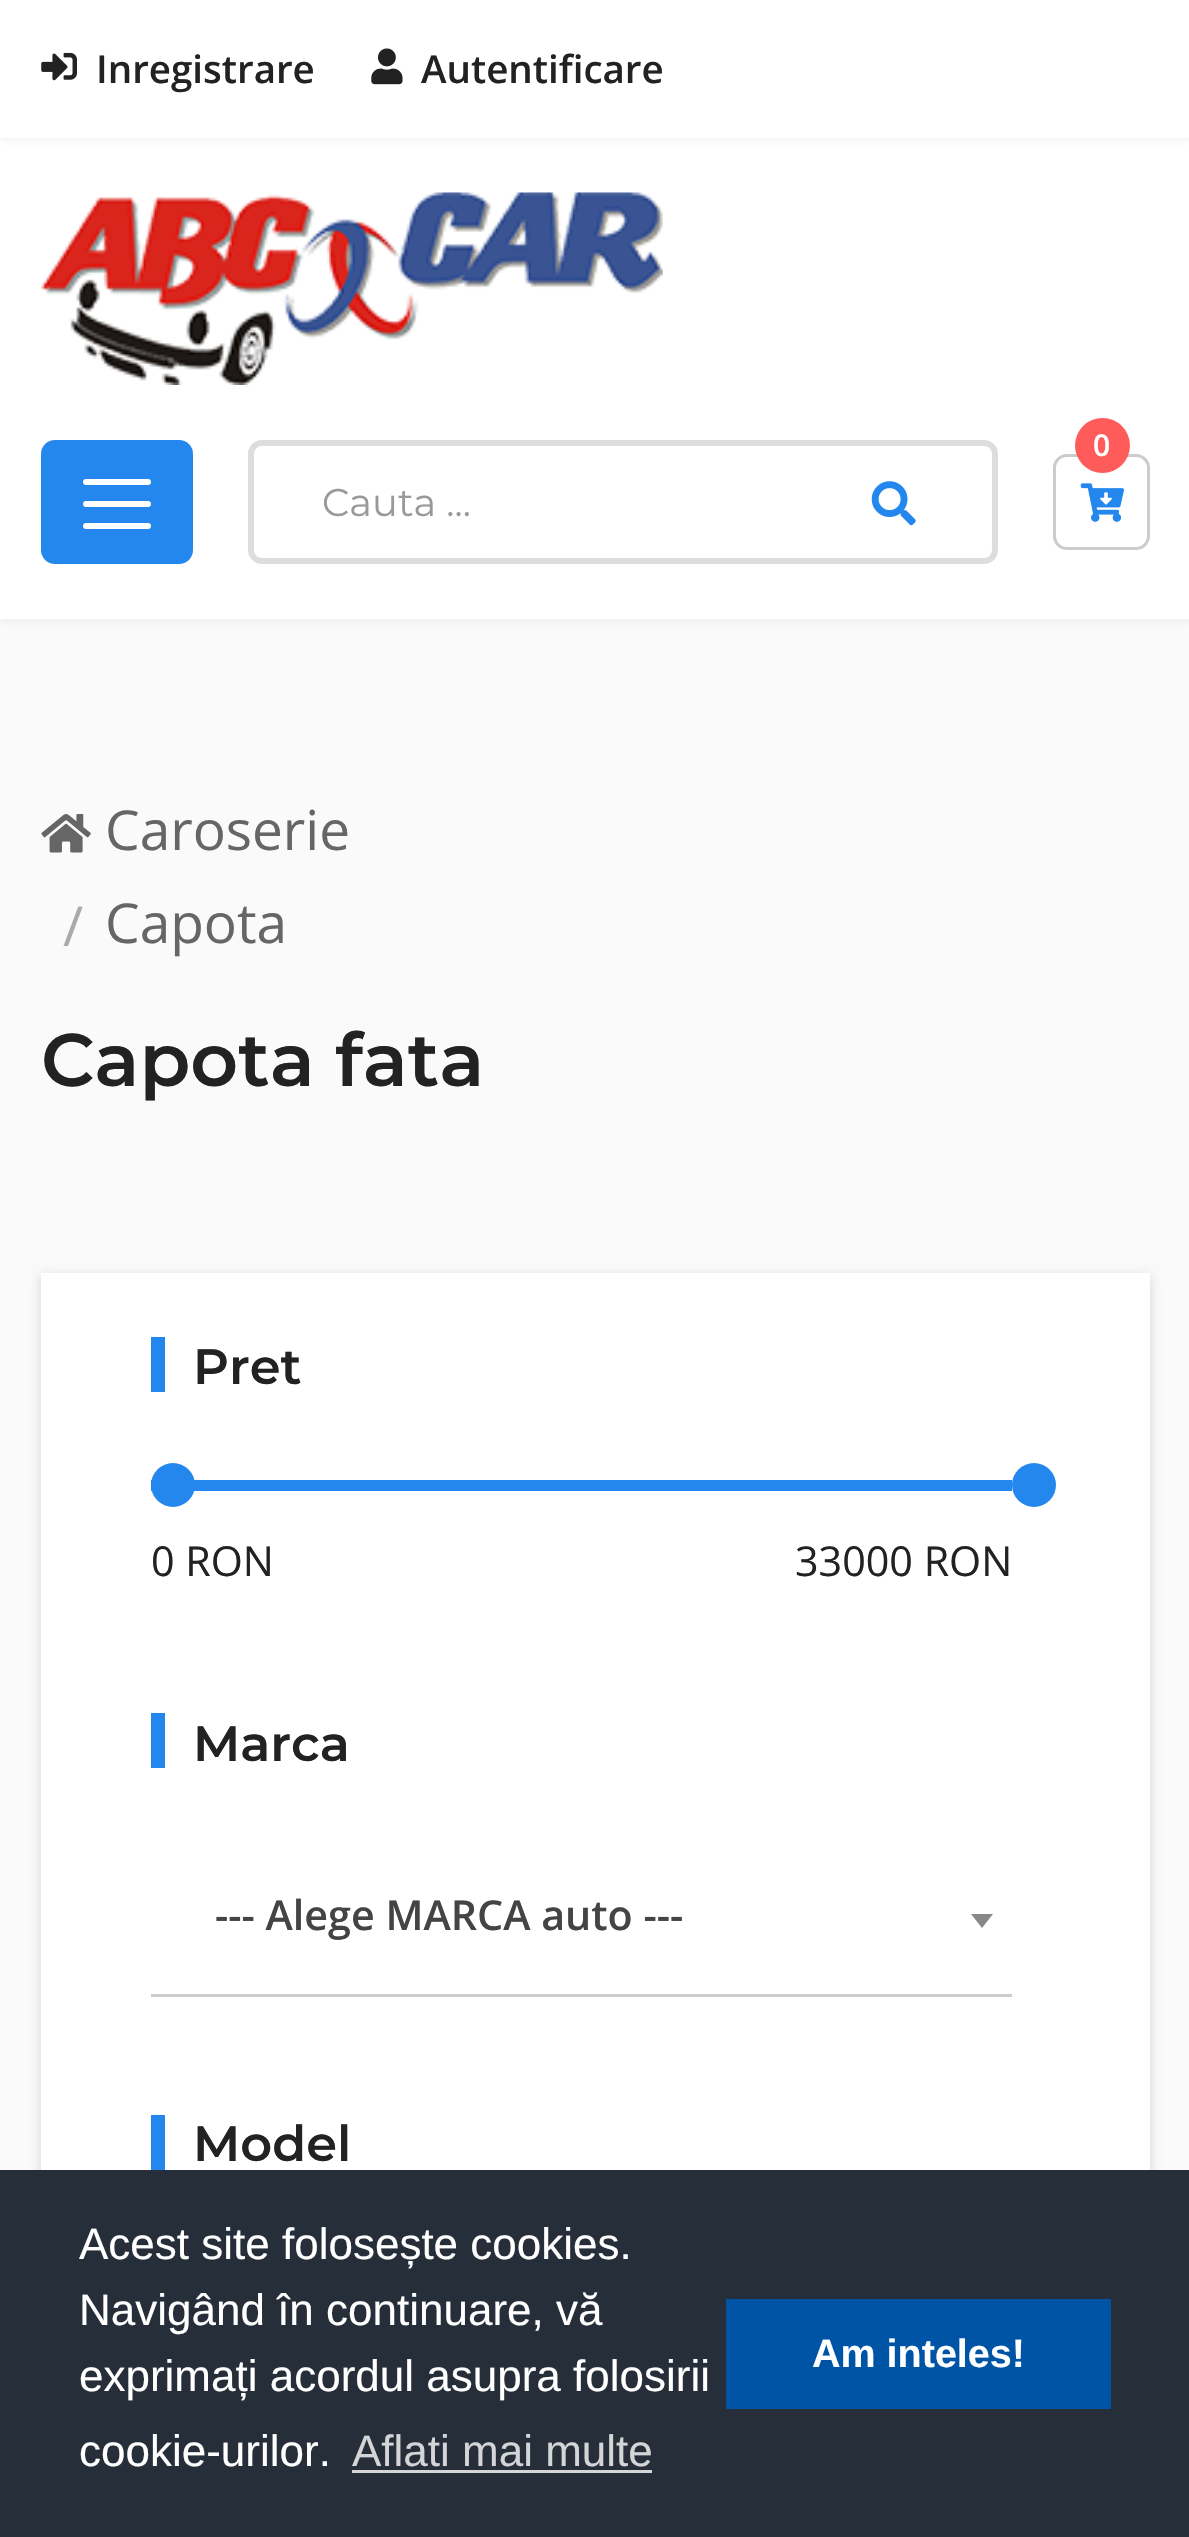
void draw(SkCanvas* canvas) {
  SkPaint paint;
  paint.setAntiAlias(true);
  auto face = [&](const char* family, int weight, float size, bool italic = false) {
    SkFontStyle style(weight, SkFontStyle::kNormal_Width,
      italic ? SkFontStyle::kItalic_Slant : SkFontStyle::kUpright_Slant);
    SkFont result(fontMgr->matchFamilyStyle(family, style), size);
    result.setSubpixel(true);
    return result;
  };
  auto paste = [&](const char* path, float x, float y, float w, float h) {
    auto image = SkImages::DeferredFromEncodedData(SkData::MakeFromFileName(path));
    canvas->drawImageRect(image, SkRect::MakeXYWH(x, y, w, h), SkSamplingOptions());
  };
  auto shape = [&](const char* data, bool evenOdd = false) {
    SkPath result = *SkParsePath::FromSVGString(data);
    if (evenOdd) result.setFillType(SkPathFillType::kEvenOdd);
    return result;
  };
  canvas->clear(0xfffafafa);
  paint.setColor(0x29a6a6a6);
  paint.setMaskFilter(SkMaskFilter::MakeBlur(kNormal_SkBlurStyle, 4));
  canvas->drawRect(SkRect::MakeXYWH(0, 388, 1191, 234), paint);
  paint.setMaskFilter(nullptr);
  paint.setColor(0xffffffff);
  canvas->drawRect(SkRect::MakeXYWH(0, 138, 1189, 481), paint);
  paint.setColor(0x29a6a6a6);
  paint.setMaskFilter(SkMaskFilter::MakeBlur(kNormal_SkBlurStyle, 4));
  canvas->drawRect(SkRect::MakeXYWH(0, 3, 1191, 137), paint);
  paint.setMaskFilter(nullptr);
  paint.setColor(0xffffffff);
  canvas->drawRect(SkRect::MakeXYWH(0, 0, 1189, 138), paint);
  paste("img/1.png", 41, 52, 36, 29);
  paste("img/2.png", 371, 48, 32, 37);
  paste("img/3.png", 41, 192, 622, 193);
  paint.setColor(0xff2487ed);
  canvas->drawRoundRect(SkRect::MakeXYWH(41, 440, 152, 124), 14, 14, paint);
  paint.setColor(0xffffffff);
  canvas->drawRoundRect(SkRect::MakeXYWH(83, 479, 68, 6), 3, 3, paint);
  canvas->drawRoundRect(SkRect::MakeXYWH(83, 501, 68, 6), 3, 3, paint);
  canvas->drawRoundRect(SkRect::MakeXYWH(83, 523, 68, 6), 3, 3, paint);
  paint.setStroke(true);
  paint.setStrokeWidth(6);
  paint.setColor(0xffdddddd);
  canvas->drawRoundRect(SkRect::MakeXYWH(251, 443, 744, 118), 11, 11, paint);
  paste("img/4.png", 871, 481, 45, 45);
  paint.setStrokeWidth(3);
  paint.setColor(0xffcccccc);
  canvas->drawRoundRect(SkRect::MakeXYWH(1054.5f, 455.5f, 94, 93), 12.5f, 12.5f, paint);
  paint.setStroke(false);
  paint.setColor(0xffff5b5b);
  canvas->drawCircle(1102.5f, 445.5f, 27.5f, paint);
  paste("img/5.png", 1080, 483, 44, 39);
  paste("img/6.png", 41, 814, 50, 39);
  paint.setColor(0x26000000);
  paint.setMaskFilter(SkMaskFilter::MakeBlur(kNormal_SkBlurStyle, 5.5f));
  canvas->drawRect(SkRect::MakeXYWH(41, 1276, 1109, 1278), paint);
  paint.setMaskFilter(nullptr);
  {
    const struct { float x, y, w, h; SkColor color; } items[] = {
      {41, 1273, 1109, 897, 0xffffffff},
      {151, 1337, 14, 55, 0xff2487ed},
      {151, 1480, 861, 11, 0xff2487ed},
    };
    for (auto [x, y, w, h, color] : items) {
      paint.setColor(color);
      canvas->drawRect(SkRect::MakeXYWH(x, y, w, h), paint);
    }
  }
  canvas->drawCircle(173, 1485, 22, paint);
  canvas->drawCircle(1034, 1485, 22, paint);
  canvas->drawRect(SkRect::MakeXYWH(151, 1713, 14, 55), paint);
  paint.setColor(0xffcccccc);
  canvas->drawRect(SkRect::MakeXYWH(151, 1994, 861, 3), paint);
  paint.setColor(0xff888888);
  canvas->drawPath(shape("M971 1914H993L982 1928Z"), paint);
  {
    const struct { float x, y, w, h; SkColor color; } items[] = {
      {151, 2115, 14, 55, 0xff2487ed},
      {0, 2170, 1189, 367, 0xff252e39},
      {352, 2470, 300, 3, 0xffd3d5d7},
      {726, 2299, 385, 110, 0xff0054a6},
    };
    for (auto [x, y, w, h, color] : items) {
      paint.setColor(color);
      canvas->drawRect(SkRect::MakeXYWH(x, y, w, h), paint);
    }
  }
  auto f0 = face("Open Sans", 600, 38.5f);
  paint.setColor(0xff222222);
  canvas->drawString("Inregistrare", 96, 83, f0, paint);
  canvas->drawString("Autentificare", 421, 83, f0, paint);
  auto f1 = face("Montserrat", 400, 38.5f);
  paint.setColor(0xff999999);
  canvas->drawString("Cauta ...", 322, 516, f1, paint);
  auto f2 = face("Open Sans", 600, 30);
  paint.setColor(0xffffffff);
  canvas->drawString("0", 1093, 456, f2, paint);
  auto f3 = face("Open Sans", 400, 55);
  paint.setColor(0xff666666);
  canvas->drawString("Caroserie", 105, 850, f3, paint);
  paint.setColor(0xffaaaaaa);
  canvas->drawString("/", 63, 946, f3, paint);
  paint.setColor(0xff666666);
  canvas->drawString("Capota", 105, 943, f3, paint);
  auto f4 = face("Montserrat", 600, 74.25f);
  paint.setColor(0xff222222);
  canvas->drawString("Capota fata", 41, 1086, f4, paint);
  auto f5 = face("Montserrat", 600, 49.5f);
  canvas->drawString("Pret", 193, 1384, f5, paint);
  auto f6 = face("Open Sans", 400, 41.25f);
  canvas->drawString("0 RON", 151, 1576, f6, paint);
  canvas->drawString("33000 RON", 795, 1576, f6, paint);
  canvas->drawString("Marca", 193, 1761, f5, paint);
  auto f7 = face("Open Sans", 600, 41.25f);
  paint.setColor(0xff444444);
  canvas->drawString("--- Alege MARCA auto ---", 215, 1930, f7, paint);
  paint.setColor(0xff222222);
  canvas->drawString("Model", 193, 2161, f5, paint);
  auto f8 = face("Liberation Sans", 400, 44);
  paint.setColor(0xffffffff);
  {
    const struct { const char* s; float x, y; } items[] = {
      {"Acest site folosește cookies.", 79, 2259},
      {"Navigând în continuare, vă", 79, 2325},
      {"exprimați acordul asupra folosirii", 79, 2391},
      {"cookie-urilor.", 79, 2466},
    };
    for (auto [s, x, y] : items) {
      canvas->drawString(s, x, y, f8, paint);
    }
  }
  paint.setColor(0xffd3d5d7);
  canvas->drawString("Aflati mai multe", 352, 2466, f8, paint);
  auto f9 = face("Liberation Sans", 700, 39.5f);
  paint.setColor(0xffffffff);
  canvas->drawString("Am inteles!", 812, 2367, f9, paint);
}
